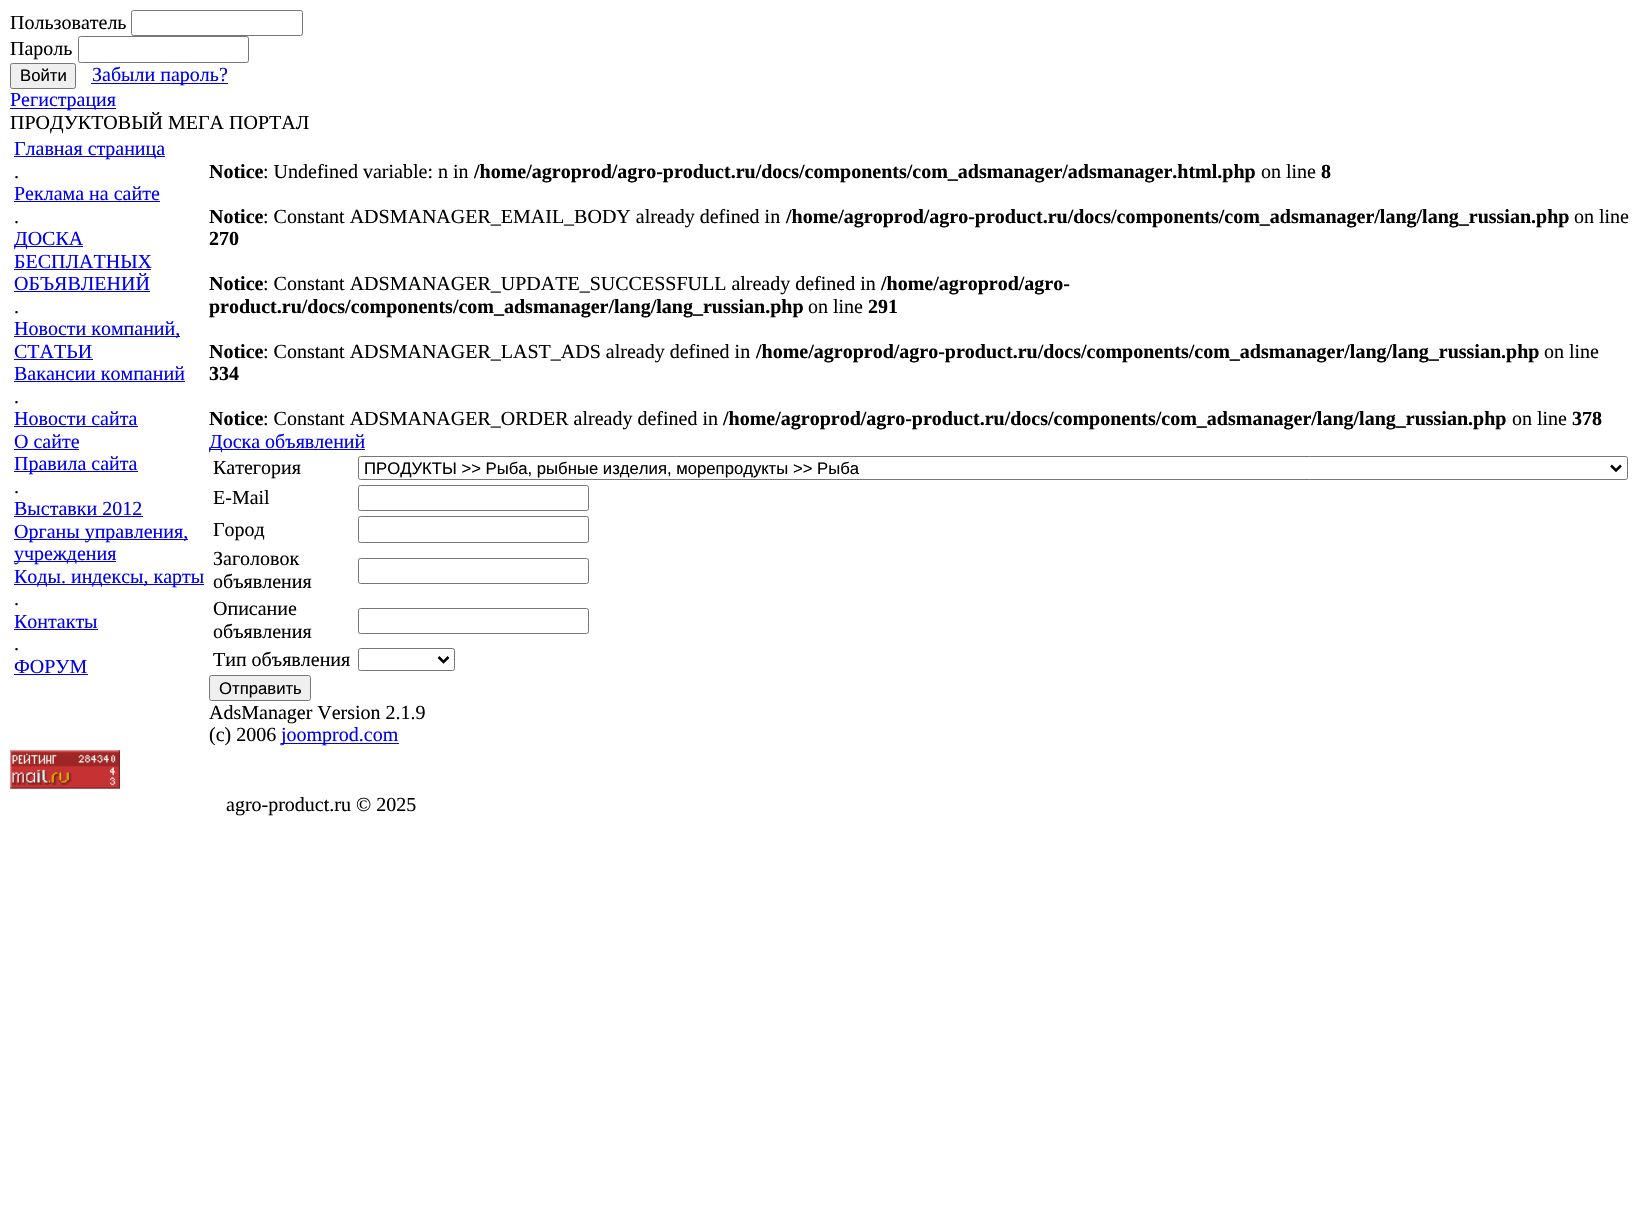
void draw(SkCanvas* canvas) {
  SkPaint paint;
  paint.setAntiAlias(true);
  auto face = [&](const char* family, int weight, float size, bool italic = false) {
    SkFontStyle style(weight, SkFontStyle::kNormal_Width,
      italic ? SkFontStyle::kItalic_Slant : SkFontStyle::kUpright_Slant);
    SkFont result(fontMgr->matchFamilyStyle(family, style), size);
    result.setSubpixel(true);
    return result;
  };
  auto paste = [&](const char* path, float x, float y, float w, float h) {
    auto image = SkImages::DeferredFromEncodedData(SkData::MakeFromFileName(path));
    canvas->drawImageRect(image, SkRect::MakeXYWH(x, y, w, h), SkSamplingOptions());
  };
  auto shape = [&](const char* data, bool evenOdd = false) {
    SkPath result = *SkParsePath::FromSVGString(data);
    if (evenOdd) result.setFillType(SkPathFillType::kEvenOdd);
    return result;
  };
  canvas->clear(0xffffffff);
  paint.setStroke(true);
  paint.setStrokeWidth(1);
  paint.setColor(0xff767676);
  canvas->drawRoundRect(SkRect::MakeXYWH(131.5f, 10.5f, 171, 25), 2, 2, paint);
  canvas->drawRoundRect(SkRect::MakeXYWH(78.5f, 36.5f, 170, 26), 2, 2, paint);
  paint.setStroke(false);
  paint.setColor(0xffefefef);
  canvas->drawRoundRect(SkRect::MakeXYWH(10.5f, 63.5f, 65, 25), 2, 2, paint);
  paint.setStroke(true);
  paint.setColor(0xff767676);
  canvas->drawRoundRect(SkRect::MakeXYWH(10.5f, 63.5f, 65, 25), 2, 2, paint);
  paint.setStroke(false);
  {
    const struct { float x, y, w, h; SkColor color; } items[] = {
      {91, 83, 137, 1, 0xff0000ee},
      {10, 108, 106, 1, 0xff0000ee},
      {14, 156, 151, 1, 0xff0000ee},
      {14, 201, 146, 1, 0xff0000ee},
      {14, 246, 69, 1, 0xff0000ee},
      {14, 269, 137, 1, 0xff0000ee},
      {14, 291, 136, 1, 0xff0000ee},
      {14, 336, 166, 1, 0xff0000ee},
      {14, 359, 79, 1, 0xff0000ee},
      {14, 381, 171, 1, 0xff0000ee},
      {14, 426, 124, 1, 0xff0000ee},
      {14, 449, 65, 1, 0xff0000ee},
      {14, 471, 124, 1, 0xff0000ee},
      {14, 516, 129, 1, 0xff0000ee},
      {14, 539, 174, 1, 0xff0000ee},
      {14, 561, 102, 1, 0xff0000ee},
      {14, 584, 190, 1, 0xff0000ee},
      {14, 629, 84, 1, 0xff0000ee},
      {14, 674, 74, 1, 0xff0000ee},
      {209, 449, 156, 1, 0xff0000ee},
    };
    for (auto [x, y, w, h, color] : items) {
      paint.setColor(color);
      canvas->drawRect(SkRect::MakeXYWH(x, y, w, h), paint);
    }
  }
  paint.setStroke(true);
  paint.setColor(0xff767676);
  canvas->drawRoundRect(SkRect::MakeXYWH(358.5f, 456.5f, 1269, 23), 2, 2, paint);
  paint.setStrokeWidth(2.5f);
  paint.setColor(0xff000000);
  canvas->drawPath(shape("M1611 465.5L1616 470.5L1621 465.5"), paint);
  paint.setStrokeWidth(1);
  paint.setColor(0xff767676);
  canvas->drawRoundRect(SkRect::MakeXYWH(358.5f, 485.5f, 230, 25), 2, 2, paint);
  canvas->drawRoundRect(SkRect::MakeXYWH(358.5f, 516.5f, 230, 26), 2, 2, paint);
  canvas->drawRoundRect(SkRect::MakeXYWH(358.5f, 558.5f, 230, 25), 2, 2, paint);
  canvas->drawRoundRect(SkRect::MakeXYWH(358.5f, 608.5f, 230, 25), 2, 2, paint);
  canvas->drawRoundRect(SkRect::MakeXYWH(358.5f, 648.5f, 96, 22), 2, 2, paint);
  paint.setStrokeWidth(2.5f);
  paint.setColor(0xff000000);
  canvas->drawPath(shape("M438.5 657L443.5 662L448.5 657"), paint);
  paint.setStroke(false);
  paint.setColor(0xffefefef);
  canvas->drawRoundRect(SkRect::MakeXYWH(209.5f, 675.5f, 101, 25), 2, 2, paint);
  paint.setStroke(true);
  paint.setStrokeWidth(1);
  paint.setColor(0xff767676);
  canvas->drawRoundRect(SkRect::MakeXYWH(209.5f, 675.5f, 101, 25), 2, 2, paint);
  paint.setStroke(false);
  paint.setColor(0xff0000ee);
  canvas->drawRect(SkRect::MakeXYWH(281, 743, 118, 1), paint);
  paste("img/1.png", 10, 750, 110, 39);
  auto f0 = face("Liberation Serif", 400, 20);
  paint.setColor(0xff000000);
  canvas->drawString("Пользователь", 10, 29, f0, paint);
  canvas->drawString("Пароль", 10, 55, f0, paint);
  auto f1 = face("Liberation Sans", 400, 16.7f);
  canvas->drawString("Войти", 20, 81, f1, paint);
  paint.setColor(0xff0000ee);
  canvas->drawString("Забыли пароль?", 92, 81, f0, paint);
  canvas->drawString("Регистрация", 10, 106, f0, paint);
  paint.setColor(0xff000000);
  canvas->drawString("ПРОДУКТОВЫЙ МЕГА ПОРТАЛ", 10, 129, f0, paint);
  paint.setColor(0xff0000ee);
  canvas->drawString("Главная страница", 14, 155, f0, paint);
  paint.setColor(0xff000000);
  canvas->drawString(".", 14, 178, f0, paint);
  paint.setColor(0xff0000ee);
  canvas->drawString("Реклама на сайте", 14, 200, f0, paint);
  paint.setColor(0xff000000);
  canvas->drawString(".", 14, 223, f0, paint);
  paint.setColor(0xff0000ee);
  {
    const struct { const char* s; float x, y; } items[] = {
      {"ДОСКА", 14, 245},
      {"БЕСПЛАТНЫХ", 14, 268},
      {"ОБЪЯВЛЕНИЙ", 14, 290},
    };
    for (auto [s, x, y] : items) {
      canvas->drawString(s, x, y, f0, paint);
    }
  }
  paint.setColor(0xff000000);
  canvas->drawString(".", 14, 313, f0, paint);
  paint.setColor(0xff0000ee);
  {
    const struct { const char* s; float x, y; } items[] = {
      {"Новости компаний,", 14, 335},
      {"СТАТЬИ", 14, 358},
      {"Вакансии компаний", 14, 380},
    };
    for (auto [s, x, y] : items) {
      canvas->drawString(s, x, y, f0, paint);
    }
  }
  paint.setColor(0xff000000);
  canvas->drawString(".", 14, 403, f0, paint);
  paint.setColor(0xff0000ee);
  {
    const struct { const char* s; float x, y; } items[] = {
      {"Новости сайта", 14, 425},
      {"О сайте", 14, 448},
      {"Правила сайта", 14, 470},
    };
    for (auto [s, x, y] : items) {
      canvas->drawString(s, x, y, f0, paint);
    }
  }
  paint.setColor(0xff000000);
  canvas->drawString(".", 14, 493, f0, paint);
  paint.setColor(0xff0000ee);
  {
    const struct { const char* s; float x, y; } items[] = {
      {"Выставки 2012", 14, 515},
      {"Органы управления,", 14, 538},
      {"учреждения", 14, 560},
      {"Коды. индексы, карты", 14, 583},
    };
    for (auto [s, x, y] : items) {
      canvas->drawString(s, x, y, f0, paint);
    }
  }
  paint.setColor(0xff000000);
  canvas->drawString(".", 14, 605, f0, paint);
  paint.setColor(0xff0000ee);
  canvas->drawString("Контакты", 14, 628, f0, paint);
  paint.setColor(0xff000000);
  canvas->drawString(".", 14, 650, f0, paint);
  paint.setColor(0xff0000ee);
  canvas->drawString("ФОРУМ", 14, 673, f0, paint);
  auto f2 = face("Liberation Serif", 700, 20);
  paint.setColor(0xff000000);
  canvas->drawString("Notice", 209, 178, f2, paint);
  canvas->drawString(": Undefined variable: n in", 263, 178, f0, paint);
  canvas->drawString("/home/agroprod/agro-product.ru/docs/components/com_adsmanager/adsmanager.html.php", 474, 178, f2, paint);
  canvas->drawString("on line", 1261, 178, f0, paint);
  canvas->drawString("8", 1321, 178, f2, paint);
  canvas->drawString("Notice", 209, 223, f2, paint);
  canvas->drawString(": Constant ADSMANAGER_EMAIL_BODY already defined in", 263, 223, f0, paint);
  canvas->drawString("/home/agroprod/agro-product.ru/docs/components/com_adsmanager/lang/lang_russian.php", 786, 223, f2, paint);
  canvas->drawString("on line", 1574, 223, f0, paint);
  canvas->drawString("270", 209, 245, f2, paint);
  canvas->drawString("Notice", 209, 290, f2, paint);
  canvas->drawString(": Constant ADSMANAGER_UPDATE_SUCCESSFULL already defined in", 263, 290, f0, paint);
  canvas->drawString("/home/agroprod/agro-", 881, 290, f2, paint);
  canvas->drawString("product.ru/docs/components/com_adsmanager/lang/lang_russian.php", 209, 313, f2, paint);
  canvas->drawString("on line", 808, 313, f0, paint);
  canvas->drawString("291", 868, 313, f2, paint);
  canvas->drawString("Notice", 209, 358, f2, paint);
  canvas->drawString(": Constant ADSMANAGER_LAST_ADS already defined in", 263, 358, f0, paint);
  canvas->drawString("/home/agroprod/agro-product.ru/docs/components/com_adsmanager/lang/lang_russian.php", 756, 358, f2, paint);
  canvas->drawString("on line", 1544, 358, f0, paint);
  canvas->drawString("334", 209, 380, f2, paint);
  canvas->drawString("Notice", 209, 425, f2, paint);
  canvas->drawString(": Constant ADSMANAGER_ORDER already defined in", 263, 425, f0, paint);
  canvas->drawString("/home/agroprod/agro-product.ru/docs/components/com_adsmanager/lang/lang_russian.php", 723, 425, f2, paint);
  canvas->drawString("on line", 1512, 425, f0, paint);
  canvas->drawString("378", 1572, 425, f2, paint);
  paint.setColor(0xff0000ee);
  canvas->drawString("Доска объявлений", 209, 448, f0, paint);
  paint.setColor(0xff000000);
  canvas->drawString("Категория", 213, 474, f0, paint);
  canvas->drawString("ПРОДУКТЫ >> Рыба, рыбные изделия, морепродукты >> Рыба", 364, 474, f1, paint);
  {
    const struct { const char* s; float x, y; } items[] = {
      {"E-Mail", 213, 504},
      {"Город", 213, 536},
      {"Заголовок", 213, 565},
      {"объявления", 213, 588},
      {"Описание", 213, 615},
      {"объявления", 213, 638},
      {"Тип объявления", 213, 666},
    };
    for (auto [s, x, y] : items) {
      canvas->drawString(s, x, y, f0, paint);
    }
  }
  canvas->drawString("Отправить", 219, 694, f1, paint);
  canvas->drawString("AdsManager Version 2.1.9", 209, 719, f0, paint);
  canvas->drawString("(c) 2006", 209, 741, f0, paint);
  paint.setColor(0xff0000ee);
  canvas->drawString("joomprod.com", 281, 741, f0, paint);
  paint.setColor(0xff000000);
  canvas->drawString("agro-product.ru © 2025", 226, 811, f0, paint);
}
